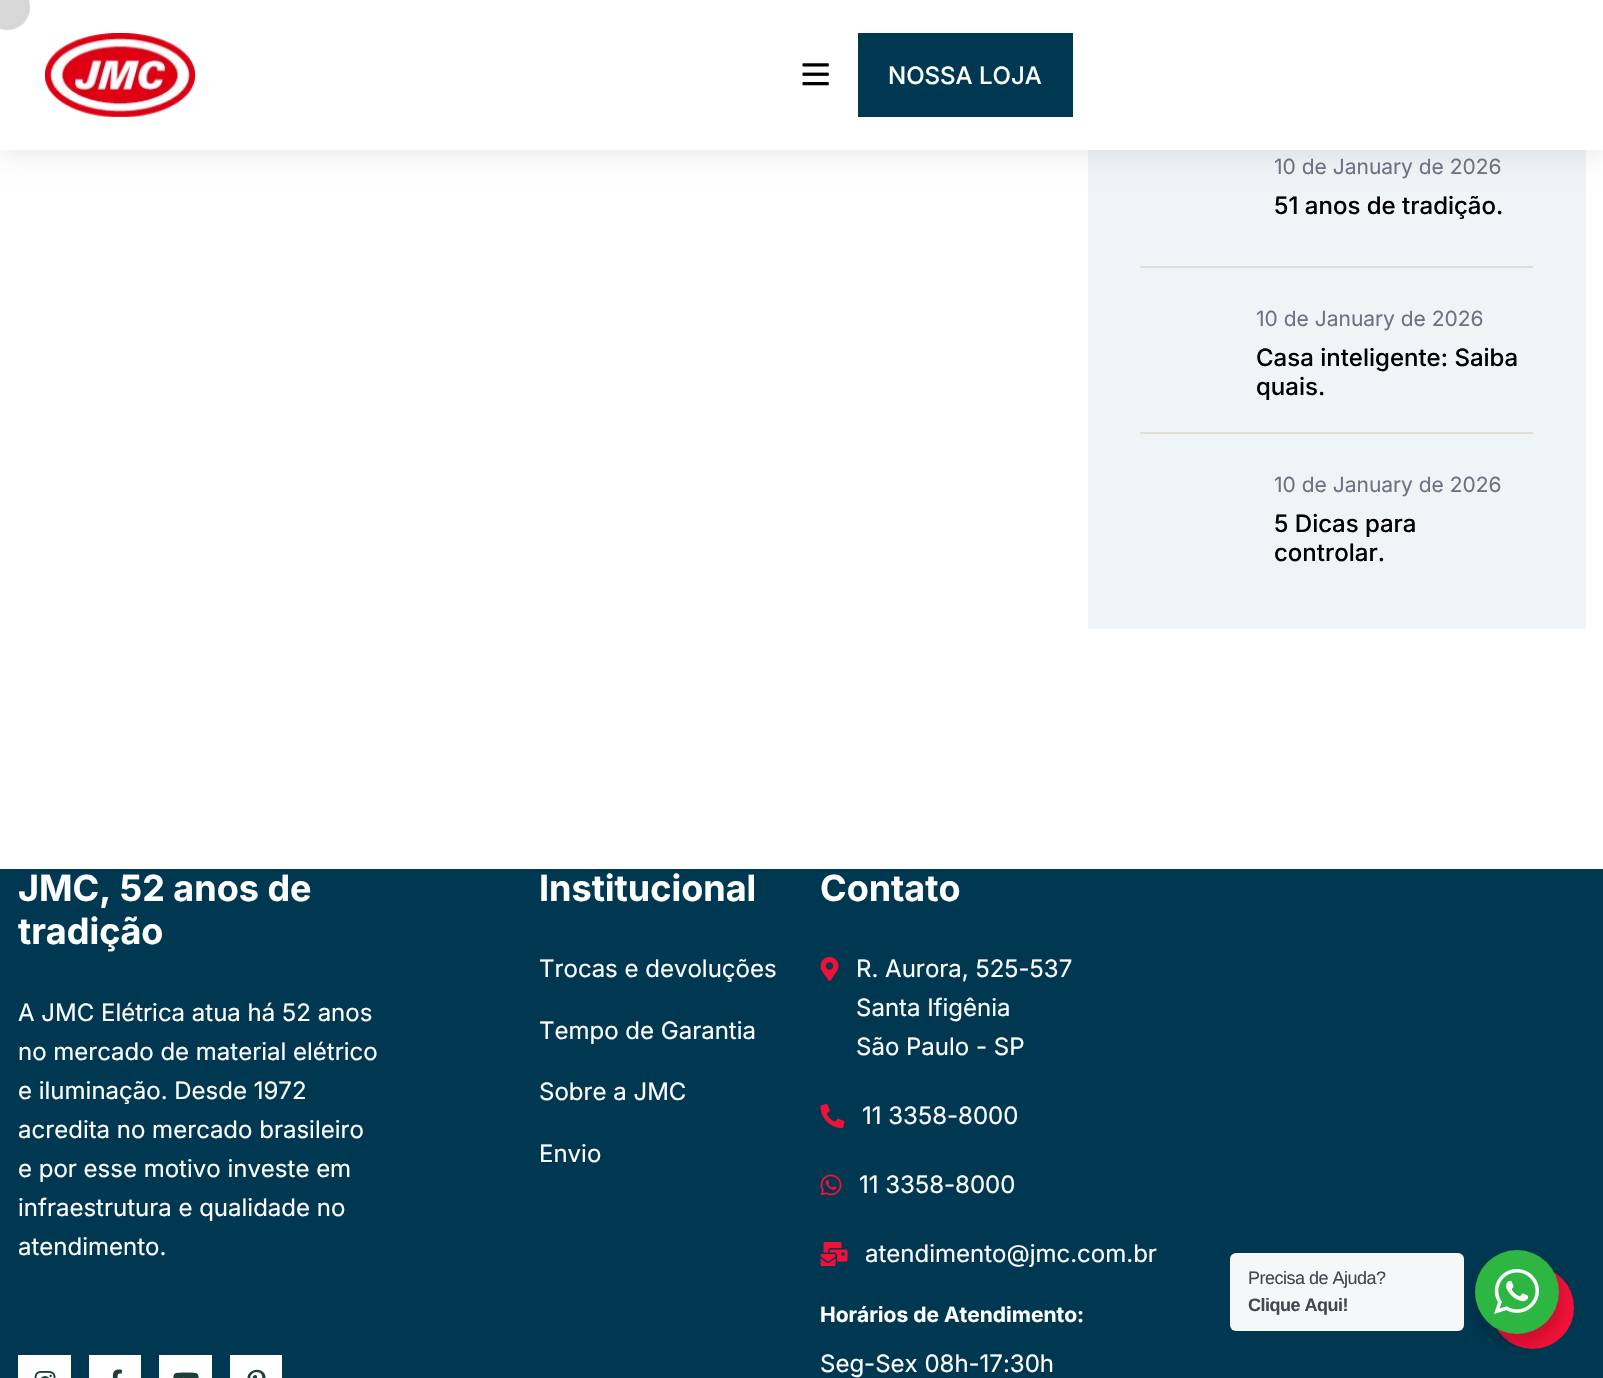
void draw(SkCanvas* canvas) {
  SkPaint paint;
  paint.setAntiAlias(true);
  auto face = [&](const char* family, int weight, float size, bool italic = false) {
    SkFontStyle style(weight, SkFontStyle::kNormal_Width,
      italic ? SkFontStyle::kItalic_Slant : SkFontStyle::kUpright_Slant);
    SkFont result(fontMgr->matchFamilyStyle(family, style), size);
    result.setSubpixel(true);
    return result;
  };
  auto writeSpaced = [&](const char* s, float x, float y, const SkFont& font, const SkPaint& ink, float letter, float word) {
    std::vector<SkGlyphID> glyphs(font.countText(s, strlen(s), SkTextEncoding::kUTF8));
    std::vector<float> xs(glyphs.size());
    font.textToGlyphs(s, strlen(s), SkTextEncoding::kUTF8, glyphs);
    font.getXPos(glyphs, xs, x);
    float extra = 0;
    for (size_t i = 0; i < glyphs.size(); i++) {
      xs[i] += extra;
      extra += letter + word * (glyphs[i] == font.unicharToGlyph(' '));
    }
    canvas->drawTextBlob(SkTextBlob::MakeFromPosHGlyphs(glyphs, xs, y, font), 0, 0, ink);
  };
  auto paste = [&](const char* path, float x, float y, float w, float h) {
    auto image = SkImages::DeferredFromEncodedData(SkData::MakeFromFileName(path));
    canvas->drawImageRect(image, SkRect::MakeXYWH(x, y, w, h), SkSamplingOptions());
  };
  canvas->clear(0xffffffff);
  paint.setColor(0xffeff4f6);
  canvas->drawRect(SkRect::MakeXYWH(1088, 150, 498, 479), paint);
  paint.setColor(0x1a000000);
  paint.setMaskFilter(SkMaskFilter::MakeBlur(kNormal_SkBlurStyle, 13.5f));
  canvas->drawRect(SkRect::MakeXYWH(-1, -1, 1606, 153), paint);
  paint.setMaskFilter(nullptr);
  paint.setColor(0xffffffff);
  canvas->drawRect(SkRect::MakeXYWH(0, 0, 1603, 150), paint);
  paint.setColor(0xffd7d7d7);
  canvas->drawCircle(7.5f, 7.5f, 22.5f, paint);
  paste("img/1.png", 45, 33, 151, 84);
  paste("img/2.png", 802, 63, 27, 23);
  {
    const struct { float x, y, w, h; SkColor color; } items[] = {
      {858, 33, 215, 84, 0xff003751},
      {1140, 266, 393, 2, 0xffe0ded7},
      {1140, 432, 393, 2, 0xffe0ded7},
      {0, 869, 1603, 509, 0xff003751},
      {18, 1355, 53, 23, 0xffffffff},
    };
    for (auto [x, y, w, h, color] : items) {
      paint.setColor(color);
      canvas->drawRect(SkRect::MakeXYWH(x, y, w, h), paint);
    }
  }
  paste("img/3.png", 34, 1371, 22, 7);
  canvas->drawRect(SkRect::MakeXYWH(89, 1355, 52, 23), paint);
  paste("img/4.png", 112, 1369, 10, 9);
  canvas->drawRect(SkRect::MakeXYWH(159, 1355, 53, 23), paint);
  paste("img/5.png", 173, 1372, 26, 6);
  canvas->drawRect(SkRect::MakeXYWH(230, 1355, 52, 23), paint);
  paste("img/6.png", 247, 1369, 19, 9);
  paste("img/7.png", 820, 957, 19, 24);
  paste("img/8.png", 820, 1104, 25, 24);
  paste("img/9.png", 820, 1174, 22, 22);
  paste("img/10.png", 820, 1242, 28, 24);
  paint.setColor(0xfff21038);
  canvas->drawCircle(1532.5f, 1307.5f, 41.5f, paint);
  paint.setColor(0x24000000);
  paint.setMaskFilter(SkMaskFilter::MakeBlur(kNormal_SkBlurStyle, 6));
  canvas->drawRoundRect(SkRect::MakeXYWH(1472, 1256, 90, 90), 45, 45, paint);
  paint.setMaskFilter(nullptr);
  paint.setColor(0xfff5f7f9);
  canvas->drawRoundRect(SkRect::MakeXYWH(1230, 1253, 234, 78), 6, 6, paint);
  paint.setColor(0xff2db742);
  canvas->drawCircle(1517, 1292, 42, paint);
  paste("img/11.png", 1494, 1269, 45, 45);
  auto f0 = face("Inter", 500, 24);
  paint.setColor(0xffffffff);
  canvas->drawString("NOSSA LOJA", 888, 84, f0, paint);
  auto f1 = face("Inter", 400, 21);
  paint.setColor(0xff6f7183);
  canvas->drawString("10 de January de 2026", 1274, 174, f1, paint);
  paint.setColor(0xff000000);
  canvas->drawString("51 anos de tradição.", 1274, 214, f0, paint);
  paint.setColor(0xff6f7183);
  canvas->drawString("10 de January de 2026", 1256, 326, f1, paint);
  paint.setColor(0xff000000);
  canvas->drawString("Casa inteligente: Saiba", 1256, 366, f0, paint);
  canvas->drawString("quais.", 1256, 395, f0, paint);
  paint.setColor(0xff6f7183);
  canvas->drawString("10 de January de 2026", 1274, 492, f1, paint);
  paint.setColor(0xff000000);
  canvas->drawString("5 Dicas para", 1274, 532, f0, paint);
  canvas->drawString("controlar.", 1274, 561, f0, paint);
  auto f2 = face("Inter", 700, 36);
  paint.setColor(0xffffffff);
  canvas->drawString("JMC, 52 anos de", 18, 901, f2, paint);
  canvas->drawString("tradição", 18, 944, f2, paint);
  auto f3 = face("Inter", 400, 24);
  {
    const struct { const char* s; float x, y; } items[] = {
      {"A JMC Elétrica atua há 52 anos", 18, 1021},
      {"no mercado de material elétrico", 18, 1060},
      {"e iluminação. Desde 1972", 18, 1099},
      {"acredita no mercado brasileiro", 18, 1138},
      {"e por esse motivo investe em", 18, 1177},
      {"infraestrutura e qualidade no", 18, 1216},
      {"atendimento.", 18, 1255},
    };
    for (auto [s, x, y] : items) {
      canvas->drawString(s, x, y, f3, paint);
    }
  }
  canvas->drawString("Institucional", 539, 901, f2, paint);
  {
    const struct { const char* s; float x, y; } items[] = {
      {"Trocas e devoluções", 539, 977},
      {"Tempo de Garantia", 539, 1039},
      {"Sobre a JMC", 539, 1100},
      {"Envio", 539, 1162},
    };
    for (auto [s, x, y] : items) {
      canvas->drawString(s, x, y, f3, paint);
    }
  }
  canvas->drawString("Contato", 820, 901, f2, paint);
  {
    const struct { const char* s; float x, y; } items[] = {
      {"R. Aurora, 525-537", 856, 977},
      {"Santa Ifigênia", 856, 1016},
      {"São Paulo - SP", 856, 1055},
      {"11 3358-8000", 862, 1124},
      {"11 3358-8000", 859, 1193},
      {"atendimento@jmc.com.br", 865, 1262},
    };
    for (auto [s, x, y] : items) {
      canvas->drawString(s, x, y, f3, paint);
    }
  }
  auto f4 = face("Inter", 700, 21);
  canvas->drawString("Horários de Atendimento:", 820, 1322, f4, paint);
  canvas->drawString("Seg-Sex 08h-17:30h", 820, 1372, f3, paint);
  auto f5 = face("Liberation Sans", 400, 18);
  paint.setColor(0xff43474e);
  writeSpaced("Precisa de Ajuda?", 1248, 1284, f5, paint, -0.5f, 0);
  auto f6 = face("Liberation Sans", 700, 18);
  writeSpaced("Clique Aqui!", 1248, 1311, f6, paint, -0.5f, 0);
}
